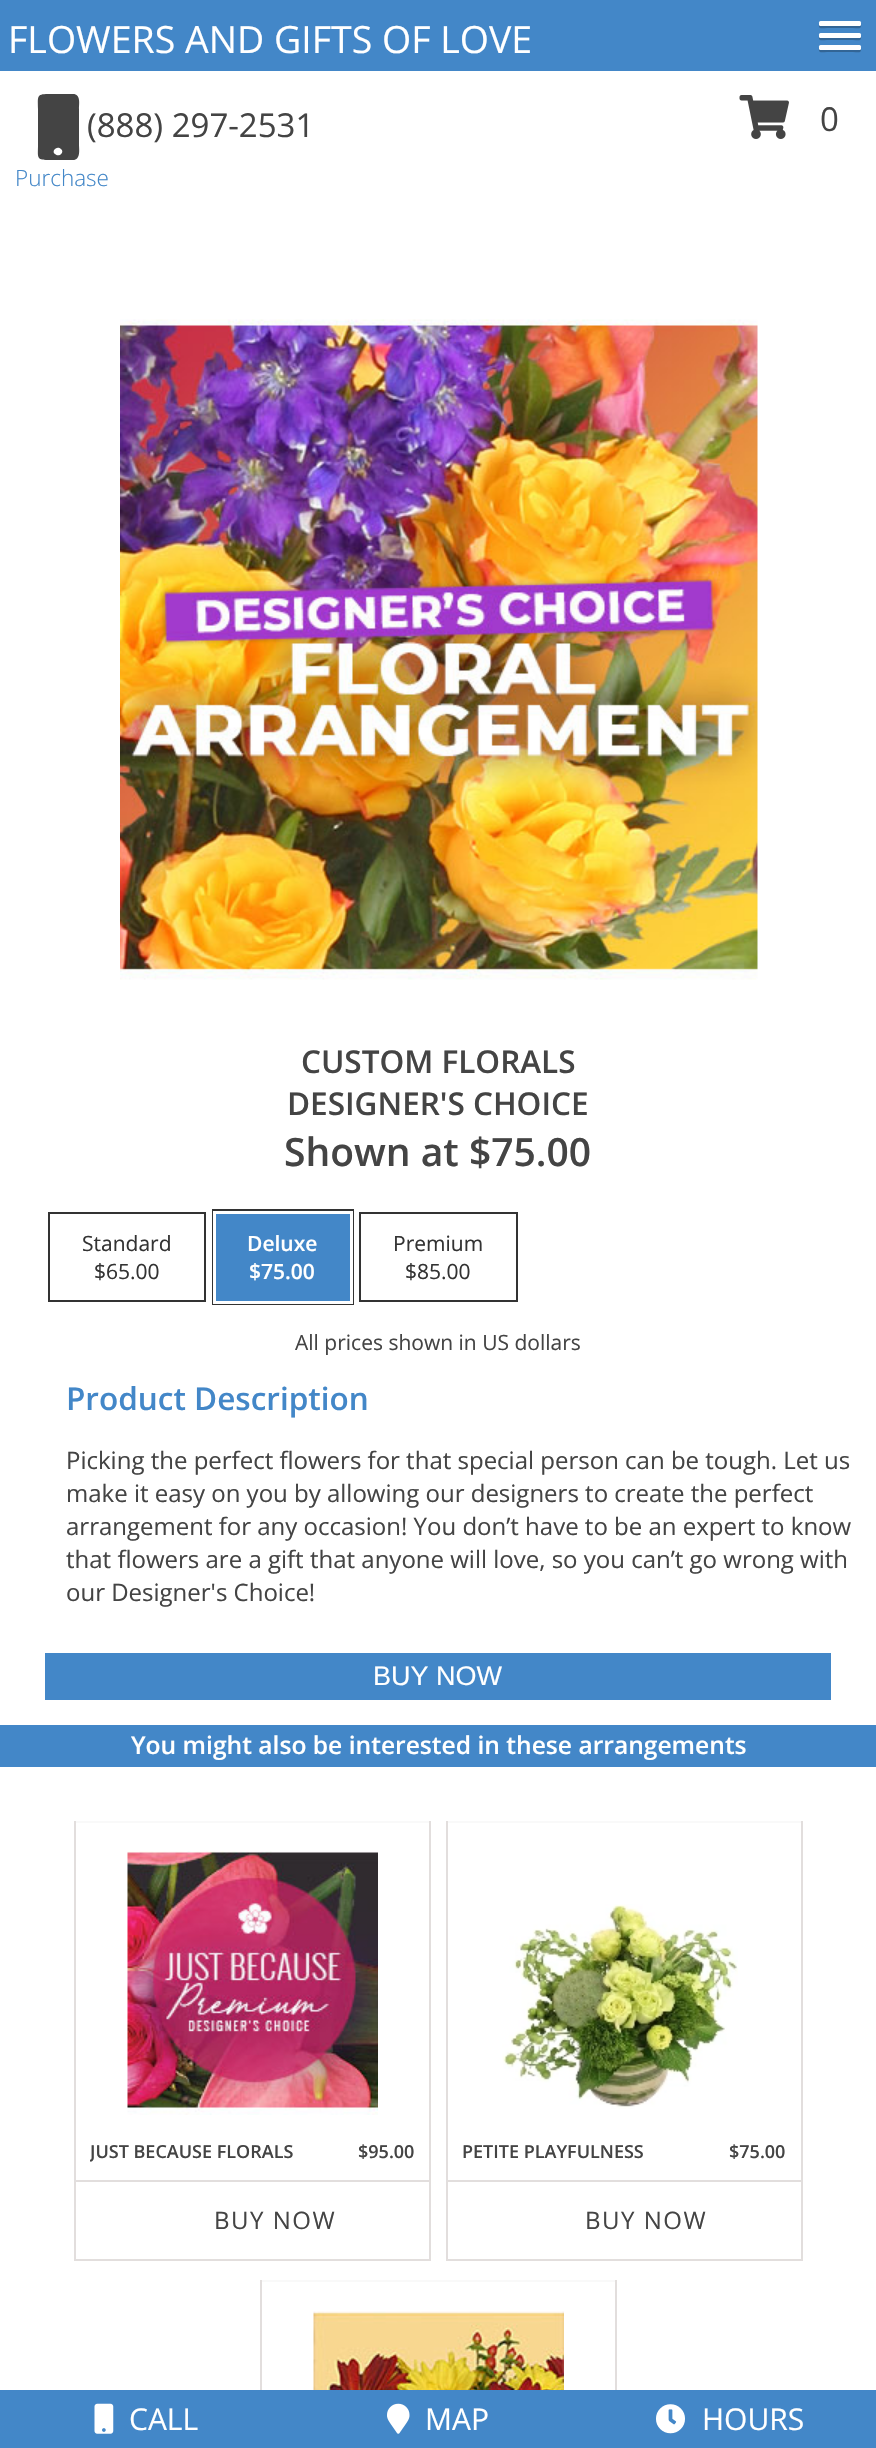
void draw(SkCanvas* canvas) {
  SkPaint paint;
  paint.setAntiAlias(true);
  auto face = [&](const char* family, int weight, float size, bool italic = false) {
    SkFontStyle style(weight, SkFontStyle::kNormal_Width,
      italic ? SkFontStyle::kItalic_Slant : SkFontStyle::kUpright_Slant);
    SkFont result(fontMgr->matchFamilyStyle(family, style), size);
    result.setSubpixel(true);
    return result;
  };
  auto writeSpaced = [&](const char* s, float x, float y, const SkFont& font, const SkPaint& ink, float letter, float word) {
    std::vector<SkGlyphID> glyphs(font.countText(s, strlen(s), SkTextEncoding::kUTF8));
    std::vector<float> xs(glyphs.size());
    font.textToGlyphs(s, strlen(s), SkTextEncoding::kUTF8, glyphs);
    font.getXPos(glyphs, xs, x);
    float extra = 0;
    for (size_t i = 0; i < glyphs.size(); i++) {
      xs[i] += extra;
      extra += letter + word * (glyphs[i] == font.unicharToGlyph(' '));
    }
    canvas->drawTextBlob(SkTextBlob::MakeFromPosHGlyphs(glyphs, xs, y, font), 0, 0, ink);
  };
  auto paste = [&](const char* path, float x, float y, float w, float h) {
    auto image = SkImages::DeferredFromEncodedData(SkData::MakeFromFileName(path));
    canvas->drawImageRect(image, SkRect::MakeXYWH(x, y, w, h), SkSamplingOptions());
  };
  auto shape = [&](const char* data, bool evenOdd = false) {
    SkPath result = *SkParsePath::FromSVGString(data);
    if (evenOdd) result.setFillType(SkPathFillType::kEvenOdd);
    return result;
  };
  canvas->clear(0xffffffff);
  paint.setColor(0xff4387c8);
  canvas->drawRect(SkRect::MakeXYWH(0, 0, 876, 71), paint);
  paint.setColor(0xff326596);
  canvas->drawPath(shape("M819 24C818 30 823 28 827 28H853C857 28 862 30 861 24L860 25H820Z"), paint);
  paint.setColor(0xffffffff);
  canvas->drawRoundRect(SkRect::MakeXYWH(819, 21, 42, 5), 1.5f, 1.5f, paint);
  paint.setColor(0xff326596);
  canvas->drawPath(shape("M819 36C818 42 823 40 827 40H853C857 40 862 42 861 36L860 37H820Z"), paint);
  paint.setColor(0xffffffff);
  canvas->drawRoundRect(SkRect::MakeXYWH(819, 33, 42, 5), 1.5f, 1.5f, paint);
  paint.setColor(0xff326596);
  canvas->drawPath(shape("M819 48C818 54 823 52 827 52H853C857 52 862 54 861 48L860 49H820Z"), paint);
  paint.setColor(0xffffffff);
  canvas->drawRoundRect(SkRect::MakeXYWH(819, 45, 42, 5), 1.5f, 1.5f, paint);
  paint.setColor(0xff444444);
  canvas->drawPath(shape("M73 94C81 94 79 104 79 109V145C79 149 81 160 73 160H48C36 160 38 157 38 145V109C38 97 36 94 48 94ZM55 154C59 158 65 152 61 149C57 145 51 151 55 154Z"), paint);
  paste("img/1.png", 739, 95, 50, 44);
  paste("img/2.png", 120, 319, 638, 661);
  paint.setStroke(true);
  paint.setStrokeWidth(2);
  paint.setColor(0xff333333);
  canvas->drawRect(SkRect::MakeXYWH(49, 1213, 156, 88), paint);
  canvas->drawRect(SkRect::MakeXYWH(213, 1210, 140, 94), paint);
  paint.setStroke(false);
  paint.setColor(0xff4387c8);
  canvas->drawRect(SkRect::MakeXYWH(214.5f, 1212.5f, 137, 90), paint);
  paint.setStroke(true);
  paint.setStrokeWidth(3);
  paint.setColor(0xffffffff);
  canvas->drawRect(SkRect::MakeXYWH(214.5f, 1212.5f, 137, 90), paint);
  paint.setStrokeWidth(2);
  paint.setColor(0xff333333);
  canvas->drawRect(SkRect::MakeXYWH(360, 1213, 157, 88), paint);
  paint.setStroke(false);
  {
    const struct { float x, y, w, h; SkColor color; } items[] = {
      {45, 1653, 786, 47, 0xff4387c8},
      {0, 1725, 876, 42, 0xff4387c8},
      {74, 1821, 357, 2, 0xfff9f9f9},
      {429, 1821, 2, 440, 0xffe2dedd},
      {74, 2259, 357, 2, 0xffe2dedd},
      {74, 1821, 2, 440, 0xffe2dedd},
    };
    for (auto [x, y, w, h, color] : items) {
      paint.setColor(color);
      canvas->drawRect(SkRect::MakeXYWH(x, y, w, h), paint);
    }
  }
  paste("img/3.png", 127, 1851, 251, 264);
  {
    const struct { float x, y, w, h; SkColor color; } items[] = {
      {75, 2180, 354, 2, 0xffe2dedd},
      {446, 1821, 357, 2, 0xfff9f9f9},
      {801, 1821, 2, 440, 0xffe2dedd},
      {446, 2259, 357, 2, 0xffe2dedd},
      {446, 1821, 2, 440, 0xffe2dedd},
    };
    for (auto [x, y, w, h, color] : items) {
      paint.setColor(color);
      canvas->drawRect(SkRect::MakeXYWH(x, y, w, h), paint);
    }
  }
  paste("img/4.png", 502, 1904, 236, 205);
  {
    const struct { float x, y, w, h; SkColor color; } items[] = {
      {447, 2180, 354, 2, 0xffe2dedd},
      {260, 2280, 357, 2, 0xfff9f9f9},
      {615, 2280, 2, 110, 0xffe2dedd},
      {260, 2280, 2, 110, 0xffe2dedd},
    };
    for (auto [x, y, w, h, color] : items) {
      paint.setColor(color);
      canvas->drawRect(SkRect::MakeXYWH(x, y, w, h), paint);
    }
  }
  paste("img/5.png", 313, 2311, 251, 79);
  paint.setColor(0xff4387c8);
  canvas->drawRect(SkRect::MakeXYWH(0, 2390, 876, 58), paint);
  paste("img/6.png", 94, 2403, 20, 31);
  paste("img/7.png", 387, 2403, 23, 31);
  paste("img/8.png", 656, 2404, 29, 30);
  auto f0 = face("Open Sans", 400, 37.5f);
  paint.setColor(0xffffffff);
  canvas->drawString("FLOWERS AND GIFTS OF LOVE", 8, 53, f0, paint);
  auto f1 = face("Open Sans", 400, 33);
  paint.setColor(0xff444444);
  canvas->drawString("(888) 297-2531", 87, 137, f1, paint);
  canvas->drawString("0", 820, 131, f1, paint);
  auto f2 = face("Open Sans", 300, 22.5f);
  paint.setColor(0xff4387c8);
  canvas->drawString("Purchase", 15, 186, f2, paint);
  auto f3 = face("Open Sans", 600, 31.5f);
  paint.setColor(0xff444444);
  canvas->drawString("CUSTOM FLORALS", 301, 1073, f3, paint);
  canvas->drawString("DESIGNER'S CHOICE", 287, 1115, f3, paint);
  auto f4 = face("Open Sans", 600, 39);
  canvas->drawString("Shown at $75.00", 284, 1166, f4, paint);
  auto f5 = face("Open Sans", 400, 21);
  paint.setColor(0xff333333);
  canvas->drawString("Standard", 82, 1251, f5, paint);
  canvas->drawString("$65.00", 94, 1279, f5, paint);
  auto f6 = face("Open Sans", 600, 21);
  paint.setColor(0xffffffff);
  canvas->drawString("Deluxe", 247, 1251, f6, paint);
  canvas->drawString("$75.00", 249, 1279, f6, paint);
  paint.setColor(0xff333333);
  canvas->drawString("Premium", 393, 1251, f5, paint);
  canvas->drawString("$85.00", 405, 1279, f5, paint);
  paint.setColor(0xff444444);
  canvas->drawString("All prices shown in US dollars", 295, 1350, f5, paint);
  paint.setColor(0xff4387c8);
  canvas->drawString("Product Description", 66, 1410, f3, paint);
  auto f7 = face("Open Sans", 400, 24);
  paint.setColor(0xff444444);
  {
    const struct { const char* s; float x, y; } items[] = {
      {"Picking the perfect flowers for that special person can be tough. Let us", 66, 1469},
      {"make it easy on you by allowing our designers to create the perfect", 66, 1502},
      {"arrangement for any occasion! You don’t have to be an expert to know", 66, 1535},
      {"that flowers are a gift that anyone will love, so you can’t go wrong with", 66, 1568},
      {"our Designer's Choice!", 66, 1601},
    };
    for (auto [s, x, y] : items) {
      canvas->drawString(s, x, y, f7, paint);
    }
  }
  auto f8 = face("Liberation Sans", 400, 27);
  paint.setColor(0xffffffff);
  canvas->drawString("BUY NOW", 373, 1685, f8, paint);
  auto f9 = face("Open Sans", 600, 24.6f);
  canvas->drawString("You might also be interested in these arrangements", 131, 1754, f9, paint);
  canvas->save();
  canvas->clipRect(SkRect::MakeXYWH(90, 2139, 218, 26));
  auto f10 = face("Open Sans", 600, 18);
  paint.setColor(0xff444444);
  canvas->drawString("JUST BECAUSE FLORALS", 90, 2158, f10, paint);
  canvas->restore();
  canvas->drawString("$95.00", 358, 2158, f10, paint);
  writeSpaced("BUY NOW", 214, 2229, f7, paint, 1.5f, 0);
  canvas->drawString("PETITE PLAYFULNESS", 462, 2158, f10, paint);
  canvas->drawString("$75.00", 729, 2158, f10, paint);
  writeSpaced("BUY NOW", 585, 2229, f7, paint, 1.5f, 0);
  auto f11 = face("Open Sans", 400, 30);
  paint.setColor(0xffffffff);
  {
    const struct { const char* s; float x, y; } items[] = {
      {"CALL", 129, 2430},
      {"MAP", 425, 2430},
      {"HOURS", 702, 2430},
    };
    for (auto [s, x, y] : items) {
      canvas->drawString(s, x, y, f11, paint);
    }
  }
}
